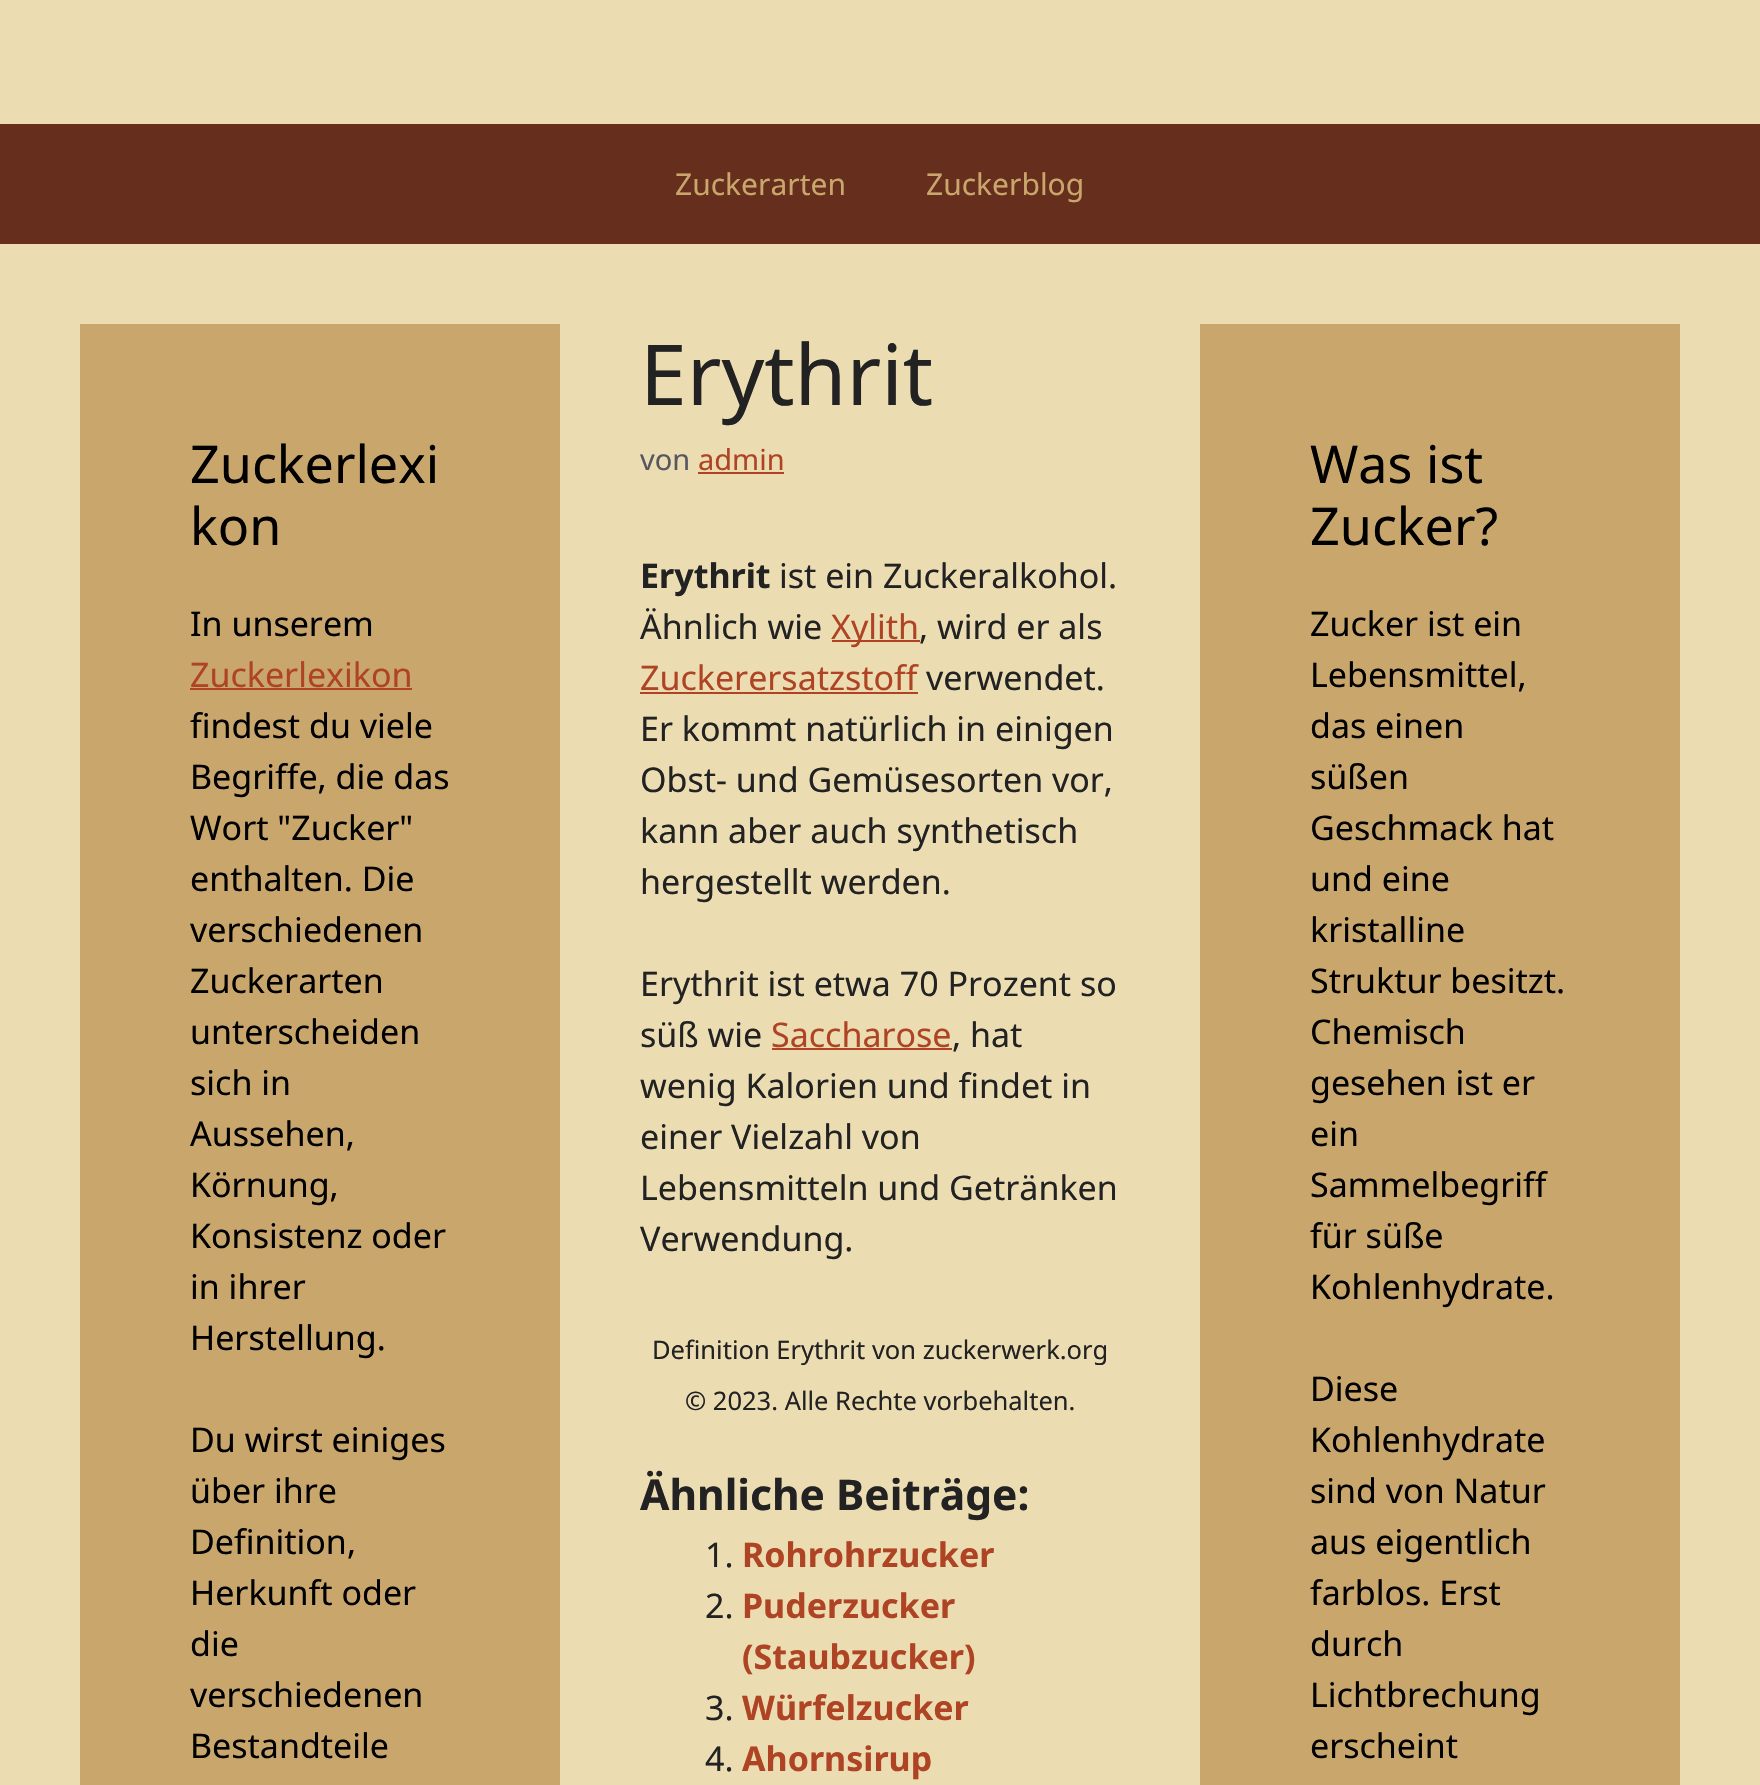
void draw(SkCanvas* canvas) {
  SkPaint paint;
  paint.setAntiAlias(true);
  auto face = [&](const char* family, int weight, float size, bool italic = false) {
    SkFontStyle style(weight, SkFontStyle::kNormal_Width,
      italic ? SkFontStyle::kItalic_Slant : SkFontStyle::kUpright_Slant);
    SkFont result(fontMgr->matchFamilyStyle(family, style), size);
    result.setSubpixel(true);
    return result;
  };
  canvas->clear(0xff662e1c);
  {
    const struct { float x, y, w, h; SkColor color; } items[] = {
      {0, 0, 1760, 124, 0xffebdcb2},
      {0, 244, 1760, 1541, 0xffebdcb2},
      {80, 324, 480, 1461, 0xffc9a66b},
      {190, 688, 222, 2, 0xffaf4425},
      {698, 472, 86, 2, 0xffaf4425},
      {832, 640, 88, 2, 0xffaf4425},
      {640, 692, 278, 2, 0xffaf4425},
      {772, 1048, 180, 2, 0xffaf4425},
      {1200, 324, 480, 1461, 0xffc9a66b},
    };
    for (auto [x, y, w, h, color] : items) {
      paint.setColor(color);
      canvas->drawRect(SkRect::MakeXYWH(x, y, w, h), paint);
    }
  }
  auto f0 = face("Noto Sans", 400, 30);
  canvas->drawString("Zuckerarten", 675, 195, f0, paint);
  canvas->drawString("Zuckerblog", 926, 195, f0, paint);
  auto f1 = face("Noto Sans", 400, 52);
  paint.setColor(0xff000000);
  canvas->drawString("Zuckerlexi", 190, 483, f1, paint);
  canvas->drawString("kon", 190, 545, f1, paint);
  auto f2 = face("Noto Sans", 400, 34);
  canvas->drawString("In unserem", 190, 636, f2, paint);
  paint.setColor(0xffaf4425);
  canvas->drawString("Zuckerlexikon", 190, 687, f2, paint);
  paint.setColor(0xff000000);
  {
    const struct { const char* s; float x, y; } items[] = {
      {"findest du viele", 190, 738},
      {"Begriffe, die das", 190, 789},
      {"Wort \"Zucker\"", 190, 840},
      {"enthalten. Die", 190, 891},
      {"verschiedenen", 190, 942},
      {"Zuckerarten", 190, 993},
      {"unterscheiden", 190, 1044},
      {"sich in", 190, 1095},
      {"Aussehen,", 190, 1146},
      {"Körnung,", 190, 1197},
      {"Konsistenz oder", 190, 1248},
      {"in ihrer", 190, 1299},
      {"Herstellung.", 190, 1350},
      {"Du wirst einiges", 190, 1452},
      {"über ihre", 190, 1503},
      {"Definition,", 190, 1554},
      {"Herkunft oder", 190, 1605},
      {"die", 190, 1656},
      {"verschiedenen", 190, 1707},
      {"Bestandteile", 190, 1758},
    };
    for (auto [s, x, y] : items) {
      canvas->drawString(s, x, y, f2, paint);
    }
  }
  auto f3 = face("Noto Sans", 400, 84);
  paint.setColor(0xff222222);
  canvas->drawString("Erythrit", 640, 405, f3, paint);
  auto f4 = face("Noto Sans", 400, 29);
  paint.setColor(0xff575760);
  canvas->drawString("von", 640, 470, f4, paint);
  paint.setColor(0xffaf4425);
  canvas->drawString("admin", 698, 470, f4, paint);
  auto f5 = face("Noto Sans", 700, 34);
  paint.setColor(0xff222222);
  canvas->drawString("Erythrit", 640, 588, f5, paint);
  canvas->drawString("ist ein Zuckeralkohol.", 779, 588, f2, paint);
  canvas->drawString("Ähnlich wie", 640, 639, f2, paint);
  paint.setColor(0xffaf4425);
  canvas->drawString("Xylith", 831, 639, f2, paint);
  paint.setColor(0xff222222);
  canvas->drawString(", wird er als", 919, 639, f2, paint);
  paint.setColor(0xffaf4425);
  canvas->drawString("Zuckerersatzstoff", 640, 690, f2, paint);
  paint.setColor(0xff222222);
  {
    const struct { const char* s; float x, y; } items[] = {
      {"verwendet.", 926, 690},
      {"Er kommt natürlich in einigen", 640, 741},
      {"Obst- und Gemüsesorten vor,", 640, 792},
      {"kann aber auch synthetisch", 640, 843},
      {"hergestellt werden.", 640, 894},
      {"Erythrit ist etwa 70 Prozent so", 640, 996},
      {"süß wie", 640, 1047},
    };
    for (auto [s, x, y] : items) {
      canvas->drawString(s, x, y, f2, paint);
    }
  }
  paint.setColor(0xffaf4425);
  canvas->drawString("Saccharose", 771, 1047, f2, paint);
  paint.setColor(0xff222222);
  {
    const struct { const char* s; float x, y; } items[] = {
      {", hat", 952, 1047},
      {"wenig Kalorien und findet in", 640, 1098},
      {"einer Vielzahl von", 640, 1149},
      {"Lebensmitteln und Getränken", 640, 1200},
      {"Verwendung.", 640, 1251},
    };
    for (auto [s, x, y] : items) {
      canvas->drawString(s, x, y, f2, paint);
    }
  }
  auto f6 = face("Noto Sans", 400, 25.5f);
  canvas->drawString("Definition Erythrit von zuckerwerk.org", 652, 1359, f6, paint);
  canvas->drawString("© 2023. Alle Rechte vorbehalten.", 685, 1410, f6, paint);
  auto f7 = face("Noto Sans", 700, 42.5f);
  canvas->drawString("Ähnliche Beiträge:", 640, 1510, f7, paint);
  canvas->drawString("1.", 705, 1567, f2, paint);
  paint.setColor(0xffaf4425);
  canvas->drawString("Rohrohrzucker", 742, 1567, f5, paint);
  paint.setColor(0xff222222);
  canvas->drawString("2.", 705, 1618, f2, paint);
  paint.setColor(0xffaf4425);
  canvas->drawString("Puderzucker", 742, 1618, f5, paint);
  canvas->drawString("(Staubzucker)", 742, 1669, f5, paint);
  paint.setColor(0xff222222);
  canvas->drawString("3.", 705, 1720, f2, paint);
  paint.setColor(0xffaf4425);
  canvas->drawString("Würfelzucker", 742, 1720, f5, paint);
  paint.setColor(0xff222222);
  canvas->drawString("4.", 705, 1771, f2, paint);
  paint.setColor(0xffaf4425);
  canvas->drawString("Ahornsirup", 742, 1771, f5, paint);
  paint.setColor(0xff000000);
  canvas->drawString("Was ist", 1310, 483, f1, paint);
  canvas->drawString("Zucker?", 1310, 545, f1, paint);
  {
    const struct { const char* s; float x, y; } items[] = {
      {"Zucker ist ein", 1310, 636},
      {"Lebensmittel,", 1310, 687},
      {"das einen", 1310, 738},
      {"süßen", 1310, 789},
      {"Geschmack hat", 1310, 840},
      {"und eine", 1310, 891},
      {"kristalline", 1310, 942},
      {"Struktur besitzt.", 1310, 993},
      {"Chemisch", 1310, 1044},
      {"gesehen ist er", 1310, 1095},
      {"ein", 1310, 1146},
      {"Sammelbegriff", 1310, 1197},
      {"für süße", 1310, 1248},
      {"Kohlenhydrate.", 1310, 1299},
      {"Diese", 1310, 1401},
      {"Kohlenhydrate", 1310, 1452},
      {"sind von Natur", 1310, 1503},
      {"aus eigentlich", 1310, 1554},
      {"farblos. Erst", 1310, 1605},
      {"durch", 1310, 1656},
      {"Lichtbrechung", 1310, 1707},
      {"erscheint", 1310, 1758},
    };
    for (auto [s, x, y] : items) {
      canvas->drawString(s, x, y, f2, paint);
    }
  }
}
